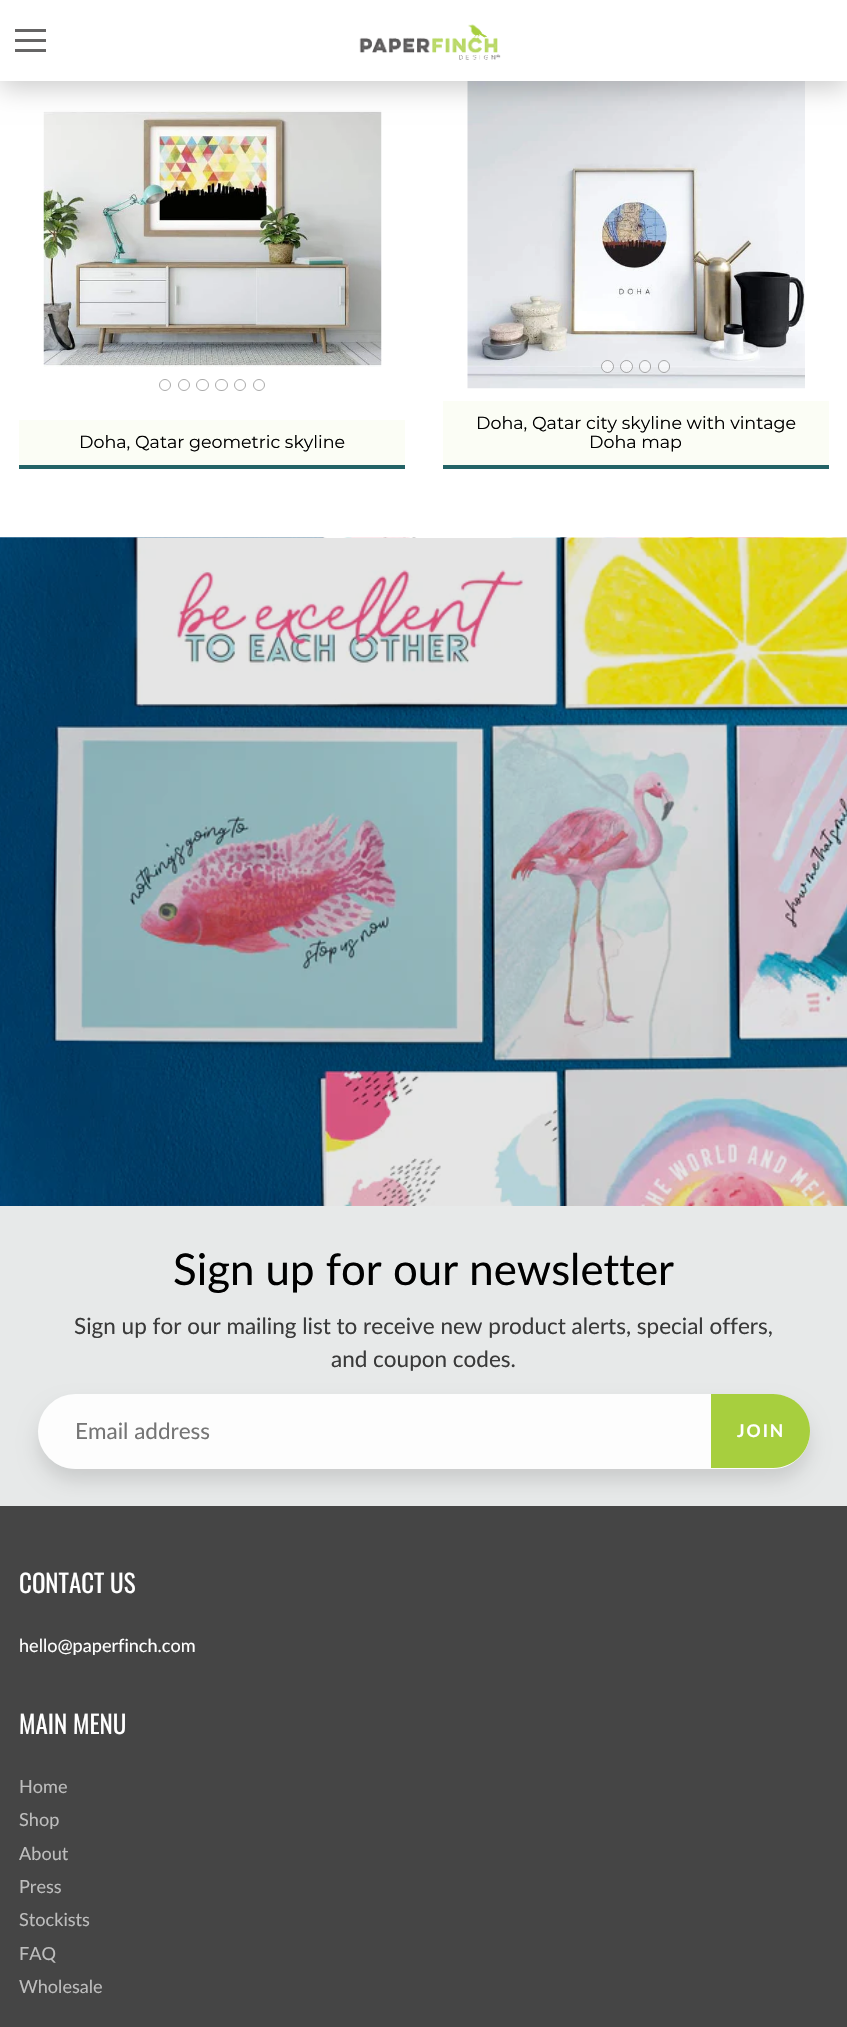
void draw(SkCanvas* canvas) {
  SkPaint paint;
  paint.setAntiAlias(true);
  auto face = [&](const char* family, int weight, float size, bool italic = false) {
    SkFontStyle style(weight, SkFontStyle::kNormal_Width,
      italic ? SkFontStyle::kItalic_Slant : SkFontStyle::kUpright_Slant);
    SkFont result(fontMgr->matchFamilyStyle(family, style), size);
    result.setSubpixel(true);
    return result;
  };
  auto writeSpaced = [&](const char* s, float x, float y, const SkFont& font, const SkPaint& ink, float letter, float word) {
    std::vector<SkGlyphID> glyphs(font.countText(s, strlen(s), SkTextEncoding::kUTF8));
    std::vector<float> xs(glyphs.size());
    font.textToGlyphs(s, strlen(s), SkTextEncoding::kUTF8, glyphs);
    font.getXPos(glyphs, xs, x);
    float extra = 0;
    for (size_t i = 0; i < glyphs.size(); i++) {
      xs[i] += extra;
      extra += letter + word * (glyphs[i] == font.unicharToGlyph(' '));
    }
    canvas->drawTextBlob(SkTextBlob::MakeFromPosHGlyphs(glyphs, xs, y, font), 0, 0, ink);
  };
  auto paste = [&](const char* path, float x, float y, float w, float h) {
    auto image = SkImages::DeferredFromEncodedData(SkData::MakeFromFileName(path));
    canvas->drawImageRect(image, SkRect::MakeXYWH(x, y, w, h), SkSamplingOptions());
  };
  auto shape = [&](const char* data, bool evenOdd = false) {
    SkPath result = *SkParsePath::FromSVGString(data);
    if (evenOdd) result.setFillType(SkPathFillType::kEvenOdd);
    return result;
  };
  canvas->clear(0xffffffff);
  paste("img/2.png", 43, 110, 339, 257);
  paste("img/3.png", 467, 81, 338, 308);
  paint.setColor(0x33000000);
  paint.setMaskFilter(SkMaskFilter::MakeBlur(kNormal_SkBlurStyle, 12.5f));
  canvas->drawRect(SkRect::MakeXYWH(0, 6, 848, 82), paint);
  paint.setMaskFilter(nullptr);
  {
    const struct { float x, y, w, h; SkColor color; } items[] = {
      {0, 0, 847, 81, 0xffffffff},
      {15, 39, 31, 3, 0xff666565},
      {15, 29, 31, 3, 0xff666565},
      {15, 49, 31, 3, 0xff666565},
    };
    for (auto [x, y, w, h, color] : items) {
      paint.setColor(color);
      canvas->drawRect(SkRect::MakeXYWH(x, y, w, h), paint);
    }
  }
  paste("img/1.png", 359, 24, 142, 36);
  paint.setStroke(true);
  paint.setStrokeWidth(1);
  paint.setColor(0xffaaaaaa);
  canvas->drawCircle(165, 385, 5.5f, paint);
  canvas->drawCircle(184, 385, 5.5f, paint);
  canvas->drawRoundRect(SkRect::MakeXYWH(196.5f, 379.5f, 12, 11), 5.5f, 5.5f, paint);
  canvas->drawRoundRect(SkRect::MakeXYWH(215.5f, 379.5f, 12, 11), 5.5f, 5.5f, paint);
  canvas->drawCircle(240, 385, 5.5f, paint);
  canvas->drawCircle(259, 385, 5.5f, paint);
  paint.setStroke(false);
  paint.setColor(0xfffbfdf5);
  canvas->drawRect(SkRect::MakeXYWH(19, 420, 386, 45), paint);
  paint.setColor(0xff236366);
  canvas->drawRect(SkRect::MakeXYWH(19, 465, 386, 4), paint);
  paint.setColor(0x80ffffff);
  canvas->drawCircle(607.5f, 366.5f, 6.5f, paint);
  paint.setStroke(true);
  paint.setColor(0x80555555);
  canvas->drawCircle(607.5f, 366.5f, 6, paint);
  paint.setStroke(false);
  paint.setColor(0x80ffffff);
  canvas->drawCircle(626.5f, 366.5f, 6.5f, paint);
  paint.setStroke(true);
  paint.setColor(0x80555555);
  canvas->drawCircle(626.5f, 366.5f, 6, paint);
  paint.setStroke(false);
  paint.setColor(0x80ffffff);
  canvas->drawRoundRect(SkRect::MakeXYWH(639, 360, 12, 13), 6, 6, paint);
  paint.setStroke(true);
  paint.setColor(0x80555555);
  canvas->drawRoundRect(SkRect::MakeXYWH(639.5f, 360.5f, 11, 12), 5.5f, 5.5f, paint);
  paint.setStroke(false);
  paint.setColor(0x80ffffff);
  canvas->drawRoundRect(SkRect::MakeXYWH(658, 360, 12, 13), 6, 6, paint);
  paint.setStroke(true);
  paint.setColor(0x80555555);
  canvas->drawRoundRect(SkRect::MakeXYWH(658.5f, 360.5f, 11, 12), 5.5f, 5.5f, paint);
  paint.setStroke(false);
  {
    const struct { float x, y, w, h; SkColor color; } items[] = {
      {443, 401, 386, 64, 0xfffbfdf5},
      {443, 465, 386, 4, 0xff236366},
      {0, 1206, 847, 300, 0xffe7e9e9},
    };
    for (auto [x, y, w, h, color] : items) {
      paint.setColor(color);
      canvas->drawRect(SkRect::MakeXYWH(x, y, w, h), paint);
    }
  }
  paste("img/4.png", 0, 537, 847, 669);
  paint.setColor(0xff454545);
  canvas->drawRect(SkRect::MakeXYWH(0, 1506, 847, 521), paint);
  canvas->save();
  canvas->clipPath(shape("M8 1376H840V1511H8ZM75.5 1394H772.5C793 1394 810 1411 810 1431.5C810 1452 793 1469 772.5 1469H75.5C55 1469 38 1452 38 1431.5C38 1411 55 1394 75.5 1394Z", true), true);
  paint.setColor(0x1f000000);
  paint.setMaskFilter(SkMaskFilter::MakeBlur(kNormal_SkBlurStyle, 9.5f));
  canvas->drawRoundRect(SkRect::MakeXYWH(38, 1406, 772, 75), 37.5f, 37.5f, paint);
  paint.setMaskFilter(nullptr);
  canvas->restore();
  paint.setColor(0xe6ffffff);
  canvas->drawRoundRect(SkRect::MakeXYWH(38, 1394, 772, 75), 37.5f, 37.5f, paint);
  paint.setColor(0xffa7cf3e);
  canvas->drawPath(shape("M711 1394H773C793.5 1394 810 1410.5 810 1431C810 1451.5 793.5 1468 773 1468H711Z"), paint);
  auto f0 = face("Montserrat", 100, 17.5f);
  paint.setColor(0xff000000);
  {
    const struct { const char* s; float x, y; } items[] = {
      {"Doha, Qatar geometric skyline", 79, 448},
      {"Doha, Qatar city skyline with vintage", 476, 429},
      {"Doha map", 589, 448},
    };
    for (auto [s, x, y] : items) {
      canvas->drawString(s, x, y, f0, paint);
    }
  }
  auto f1 = face("Lato", 400, 43.75f);
  canvas->drawString("Sign up for our newsletter", 173, 1285, f1, paint);
  auto f2 = face("Lato", 400, 22.5f);
  paint.setColor(0xff3a3a3a);
  canvas->drawString("Sign up for our mailing list to receive new product alerts, special offers,", 74, 1334, f2, paint);
  canvas->drawString("and coupon codes.", 331, 1367, f2, paint);
  paint.setColor(0xff757575);
  canvas->drawString("Email address", 75, 1439, f2, paint);
  auto f3 = face("Lato", 700, 17.5f);
  paint.setColor(0xffffffff);
  writeSpaced("JOIN", 737, 1437, f3, paint, 2, 0);
  auto f4 = face("Oswald", 400, 25);
  canvas->drawString("CONTACT US", 19, 1593, f4, paint);
  auto f5 = face("Lato", 400, 18.1f);
  canvas->drawString("hello@paperfinch.com", 19, 1652, f5, paint);
  canvas->drawString("MAIN MENU", 19, 1734, f4, paint);
  paint.setColor(0xffbdbdbd);
  {
    const struct { const char* s; float x, y; } items[] = {
      {"Home", 19, 1793},
      {"Shop", 19, 1826},
      {"About", 19, 1860},
      {"Press", 19, 1893},
      {"Stockists", 19, 1926},
      {"FAQ", 19, 1960},
      {"Wholesale", 19, 1993},
    };
    for (auto [s, x, y] : items) {
      canvas->drawString(s, x, y, f5, paint);
    }
  }
}
